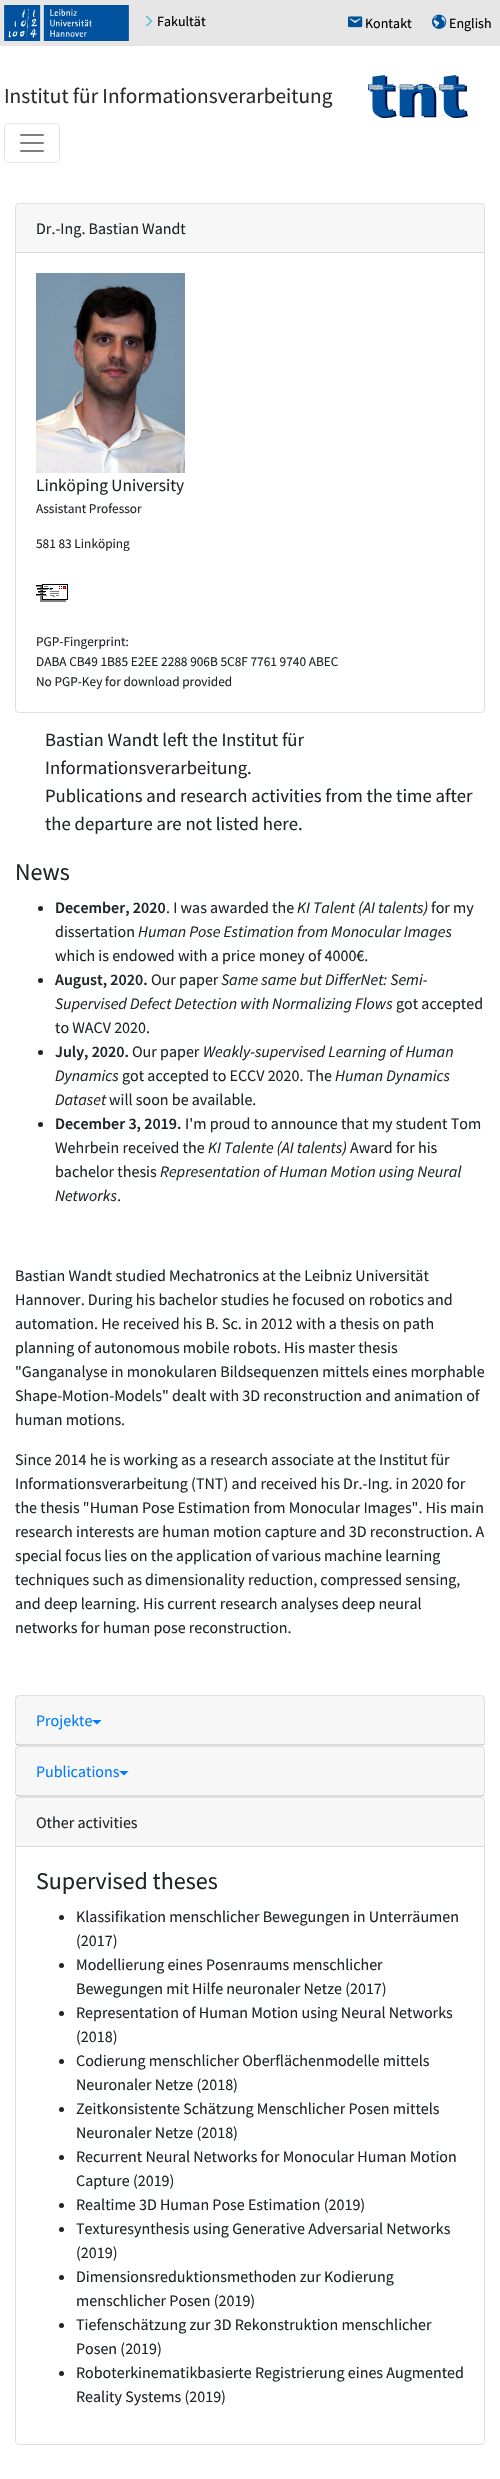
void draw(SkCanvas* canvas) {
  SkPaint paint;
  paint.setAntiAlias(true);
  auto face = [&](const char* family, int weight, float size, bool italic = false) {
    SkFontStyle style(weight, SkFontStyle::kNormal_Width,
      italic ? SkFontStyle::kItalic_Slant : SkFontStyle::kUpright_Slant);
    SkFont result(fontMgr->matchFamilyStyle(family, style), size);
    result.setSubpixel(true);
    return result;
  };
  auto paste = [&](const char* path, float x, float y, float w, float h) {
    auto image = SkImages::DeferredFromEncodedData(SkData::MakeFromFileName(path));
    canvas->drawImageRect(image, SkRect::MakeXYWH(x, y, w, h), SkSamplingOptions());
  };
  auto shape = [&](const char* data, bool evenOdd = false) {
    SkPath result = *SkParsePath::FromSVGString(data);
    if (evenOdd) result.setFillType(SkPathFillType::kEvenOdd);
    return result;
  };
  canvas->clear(0xffffffff);
  paint.setColor(0xffe6e6e6);
  canvas->drawRect(SkRect::MakeXYWH(0, 0, 500, 46), paint);
  paste("img/1.png", 4, 5, 125, 36);
  paste("img/2.png", 145, 15, 8, 12);
  paste("img/3.png", 348, 16, 15, 12);
  paste("img/4.png", 432, 14, 15, 15);
  paste("img/5.png", 368, 75, 100, 43);
  paint.setStroke(true);
  paint.setStrokeWidth(1);
  canvas->drawRoundRect(SkRect::MakeXYWH(4.5f, 123.5f, 55, 39), 3.5f, 3.5f, paint);
  paste("img/6.png", 20, 134, 24, 18);
  paint.setColor(0xffdfdfdf);
  canvas->drawRoundRect(SkRect::MakeXYWH(15.5f, 203.5f, 469, 509), 3.5f, 3.5f, paint);
  paint.setStroke(false);
  paint.setColor(0x08000000);
  canvas->drawRect(SkRect::MakeXYWH(16, 204, 468, 48), paint);
  paint.setColor(0xffd8d8d8);
  canvas->drawRect(SkRect::MakeXYWH(16, 252, 468, 1), paint);
  paste("img/7.png", 36, 273, 149, 200);
  paste("img/8.png", 36, 584, 32, 18);
  paint.setColor(0xff212529);
  canvas->drawCircle(40.5f, 908.5f, 2.5f, paint);
  canvas->drawCircle(40.5f, 980.5f, 2.5f, paint);
  canvas->drawCircle(40.5f, 1052.5f, 2.5f, paint);
  canvas->drawCircle(40.5f, 1124.5f, 2.5f, paint);
  paint.setStroke(true);
  paint.setColor(0xffdfdfdf);
  canvas->drawRoundRect(SkRect::MakeXYWH(15.5f, 1695.5f, 469, 50), 3.5f, 3.5f, paint);
  paint.setStroke(false);
  paint.setColor(0x08000000);
  canvas->drawRect(SkRect::MakeXYWH(16, 1696, 468, 49), paint);
  paint.setColor(0x1f000000);
  canvas->drawRect(SkRect::MakeXYWH(16, 1744, 468, 1), paint);
  paint.setColor(0xff007bff);
  canvas->drawPath(shape("M92 1720H101.5L97 1724.5Z"), paint);
  paint.setStroke(true);
  paint.setColor(0xffdfdfdf);
  canvas->drawRoundRect(SkRect::MakeXYWH(15.5f, 1746.5f, 469, 50), 3.5f, 3.5f, paint);
  paint.setStroke(false);
  paint.setColor(0x08000000);
  canvas->drawRect(SkRect::MakeXYWH(16, 1747, 468, 49), paint);
  paint.setColor(0x1f000000);
  canvas->drawRect(SkRect::MakeXYWH(16, 1795, 468, 1), paint);
  paint.setColor(0xff007bff);
  canvas->drawPath(shape("M119 1771H128.5L124 1775.5Z"), paint);
  paint.setStroke(true);
  paint.setColor(0xffdfdfdf);
  canvas->drawRoundRect(SkRect::MakeXYWH(15.5f, 1797.5f, 469, 647), 3.5f, 3.5f, paint);
  paint.setStroke(false);
  paint.setColor(0x08000000);
  canvas->drawRect(SkRect::MakeXYWH(16, 1798, 468, 48), paint);
  paint.setColor(0xffd8d8d8);
  canvas->drawRect(SkRect::MakeXYWH(16, 1846, 468, 1), paint);
  paint.setColor(0xff212529);
  canvas->drawCircle(61.5f, 1917.5f, 2.5f, paint);
  canvas->drawCircle(61.5f, 1965.5f, 2.5f, paint);
  canvas->drawCircle(61.5f, 2013.5f, 2.5f, paint);
  canvas->drawCircle(61.5f, 2061.5f, 2.5f, paint);
  canvas->drawCircle(61.5f, 2109.5f, 2.5f, paint);
  canvas->drawCircle(61.5f, 2157.5f, 2.5f, paint);
  canvas->drawCircle(61.5f, 2205.5f, 2.5f, paint);
  canvas->drawCircle(61.5f, 2229.5f, 2.5f, paint);
  canvas->drawCircle(61.5f, 2277.5f, 2.5f, paint);
  canvas->drawCircle(61.5f, 2325.5f, 2.5f, paint);
  canvas->drawCircle(61.5f, 2373.5f, 2.5f, paint);
  auto f0 = face("Source Sans Pro", 400, 14);
  paint.setColor(0xff000000);
  {
    const struct { const char* s; float x, y; } items[] = {
      {"Fakultät", 157, 26},
      {"Kontakt", 365, 28},
      {"English", 449, 28},
    };
    for (auto [s, x, y] : items) {
      canvas->drawString(s, x, y, f0, paint);
    }
  }
  auto f1 = face("Source Sans Pro", 400, 21.3f);
  paint.setColor(0xff2b2b2b);
  canvas->drawString("Institut für Informationsverarbeitung", 4, 103, f1, paint);
  auto f2 = face("Source Sans Pro", 400, 16);
  paint.setColor(0xff212529);
  canvas->drawString("Dr.-Ing. Bastian Wandt", 36, 234, f2, paint);
  auto f3 = face("Source Sans Pro", 400, 17.25f);
  canvas->drawString("Linköping University", 36, 491, f3, paint);
  auto f4 = face("Source Sans Pro", 400, 13.3f);
  {
    const struct { const char* s; float x, y; } items[] = {
      {"Assistant Professor", 36, 513},
      {"581 83 Linköping", 36, 548},
      {"PGP-Fingerprint:", 36, 646},
      {"DABA CB49 1B85 E2EE 2288 906B 5C8F 7761 9740 ABEC", 36, 666},
      {"No PGP-Key for download provided", 36, 686},
    };
    for (auto [s, x, y] : items) {
      canvas->drawString(s, x, y, f4, paint);
    }
  }
  auto f5 = face("Source Sans Pro", 400, 18.7f);
  {
    const struct { const char* s; float x, y; } items[] = {
      {"Bastian Wandt left the Institut für", 45, 746},
      {"Informationsverarbeitung.", 45, 774},
      {"Publications and research activities from the time after", 45, 802},
      {"the departure are not listed here.", 45, 830},
    };
    for (auto [s, x, y] : items) {
      canvas->drawString(s, x, y, f5, paint);
    }
  }
  auto f6 = face("Source Sans Pro", 400, 24);
  canvas->drawString("News", 15, 880, f6, paint);
  auto f7 = face("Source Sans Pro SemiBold", 600, 16);
  canvas->drawString("December, 2020", 55, 913, f7, paint);
  canvas->drawString(". I was awarded the", 166, 913, f2, paint);
  auto f8 = face("Source Sans Pro", 400, 16, true);
  canvas->drawString("KI Talent (AI talents)", 297, 913, f8, paint);
  canvas->drawString("for my", 431, 913, f2, paint);
  canvas->drawString("dissertation", 55, 937, f2, paint);
  canvas->drawString("Human Pose Estimation from Monocular Images", 138, 937, f8, paint);
  canvas->drawString("which is endowed with a price money of 4000€.", 55, 961, f2, paint);
  canvas->drawString("August, 2020.", 55, 985, f7, paint);
  canvas->drawString("Our paper", 151, 985, f2, paint);
  canvas->drawString("Same same but DifferNet: Semi-", 221, 985, f8, paint);
  canvas->drawString("Supervised Defect Detection with Normalizing Flows", 55, 1009, f8, paint);
  canvas->drawString("got accepted", 396, 1009, f2, paint);
  canvas->drawString("to WACV 2020.", 55, 1033, f2, paint);
  canvas->drawString("July, 2020.", 55, 1057, f7, paint);
  canvas->drawString("Our paper", 132, 1057, f2, paint);
  canvas->drawString("Weakly-supervised Learning of Human", 203, 1057, f8, paint);
  canvas->drawString("Dynamics", 55, 1081, f8, paint);
  canvas->drawString("got accepted to ECCV 2020. The", 122, 1081, f2, paint);
  canvas->drawString("Human Dynamics", 335, 1081, f8, paint);
  canvas->drawString("Dataset", 55, 1105, f8, paint);
  canvas->drawString("will soon be available.", 109, 1105, f2, paint);
  canvas->drawString("December 3, 2019.", 55, 1129, f7, paint);
  canvas->drawString("I'm proud to announce that my student Tom", 185, 1129, f2, paint);
  canvas->drawString("Wehrbein received the", 55, 1153, f2, paint);
  canvas->drawString("KI Talente (AI talents)", 208, 1153, f8, paint);
  canvas->drawString("Award for his", 350, 1153, f2, paint);
  canvas->drawString("bachelor thesis", 55, 1177, f2, paint);
  canvas->drawString("Representation of Human Motion using Neural", 160, 1177, f8, paint);
  canvas->drawString("Networks", 55, 1201, f8, paint);
  {
    const struct { const char* s; float x, y; } items[] = {
      {".", 117, 1201},
      {"Bastian Wandt studied Mechatronics at the Leibniz Universität", 15, 1281},
      {"Hannover. During his bachelor studies he focused on robotics and", 15, 1305},
      {"automation. He received his B. Sc. in 2012 with a thesis on path", 15, 1329},
      {"planning of autonomous mobile robots. His master thesis", 15, 1353},
      {"\"Ganganalyse in monokularen Bildsequenzen mittels eines morphable", 15, 1377},
      {"Shape-Motion-Models\" dealt with 3D reconstruction and animation of", 15, 1401},
      {"human motions.", 15, 1425},
      {"Since 2014 he is working as a research associate at the Institut für", 15, 1465},
      {"Informationsverarbeitung (TNT) and received his Dr.-Ing. in 2020 for", 15, 1489},
      {"the thesis \"Human Pose Estimation from Monocular Images\". His main", 15, 1513},
      {"research interests are human motion capture and 3D reconstruction. A", 15, 1537},
      {"special focus lies on the application of various machine learning", 15, 1561},
      {"techniques such as dimensionality reduction, compressed sensing,", 15, 1585},
      {"and deep learning. His current research analyses deep neural", 15, 1609},
      {"networks for human pose reconstruction.", 15, 1633},
    };
    for (auto [s, x, y] : items) {
      canvas->drawString(s, x, y, f2, paint);
    }
  }
  paint.setColor(0xff007bff);
  canvas->drawString("Projekte", 36, 1726, f2, paint);
  canvas->drawString("Publications", 36, 1777, f2, paint);
  paint.setColor(0xff212529);
  canvas->drawString("Other activities", 36, 1828, f2, paint);
  canvas->drawString("Supervised theses", 36, 1889, f6, paint);
  {
    const struct { const char* s; float x, y; } items[] = {
      {"Klassifikation menschlicher Bewegungen in Unterräumen", 76, 1922},
      {"(2017)", 76, 1946},
      {"Modellierung eines Posenraums menschlicher", 76, 1970},
      {"Bewegungen mit Hilfe neuronaler Netze (2017)", 76, 1994},
      {"Representation of Human Motion using Neural Networks", 76, 2018},
      {"(2018)", 76, 2042},
      {"Codierung menschlicher Oberflächenmodelle mittels", 76, 2066},
      {"Neuronaler Netze (2018)", 76, 2090},
      {"Zeitkonsistente Schätzung Menschlicher Posen mittels", 76, 2114},
      {"Neuronaler Netze (2018)", 76, 2138},
      {"Recurrent Neural Networks for Monocular Human Motion", 76, 2162},
      {"Capture (2019)", 76, 2186},
      {"Realtime 3D Human Pose Estimation (2019)", 76, 2210},
      {"Texturesynthesis using Generative Adversarial Networks", 76, 2234},
      {"(2019)", 76, 2258},
      {"Dimensionsreduktionsmethoden zur Kodierung", 76, 2282},
      {"menschlicher Posen (2019)", 76, 2306},
      {"Tiefenschätzung zur 3D Rekonstruktion menschlicher", 76, 2330},
      {"Posen (2019)", 76, 2354},
      {"Roboterkinematikbasierte Registrierung eines Augmented", 76, 2378},
      {"Reality Systems (2019)", 76, 2402},
    };
    for (auto [s, x, y] : items) {
      canvas->drawString(s, x, y, f2, paint);
    }
  }
}
